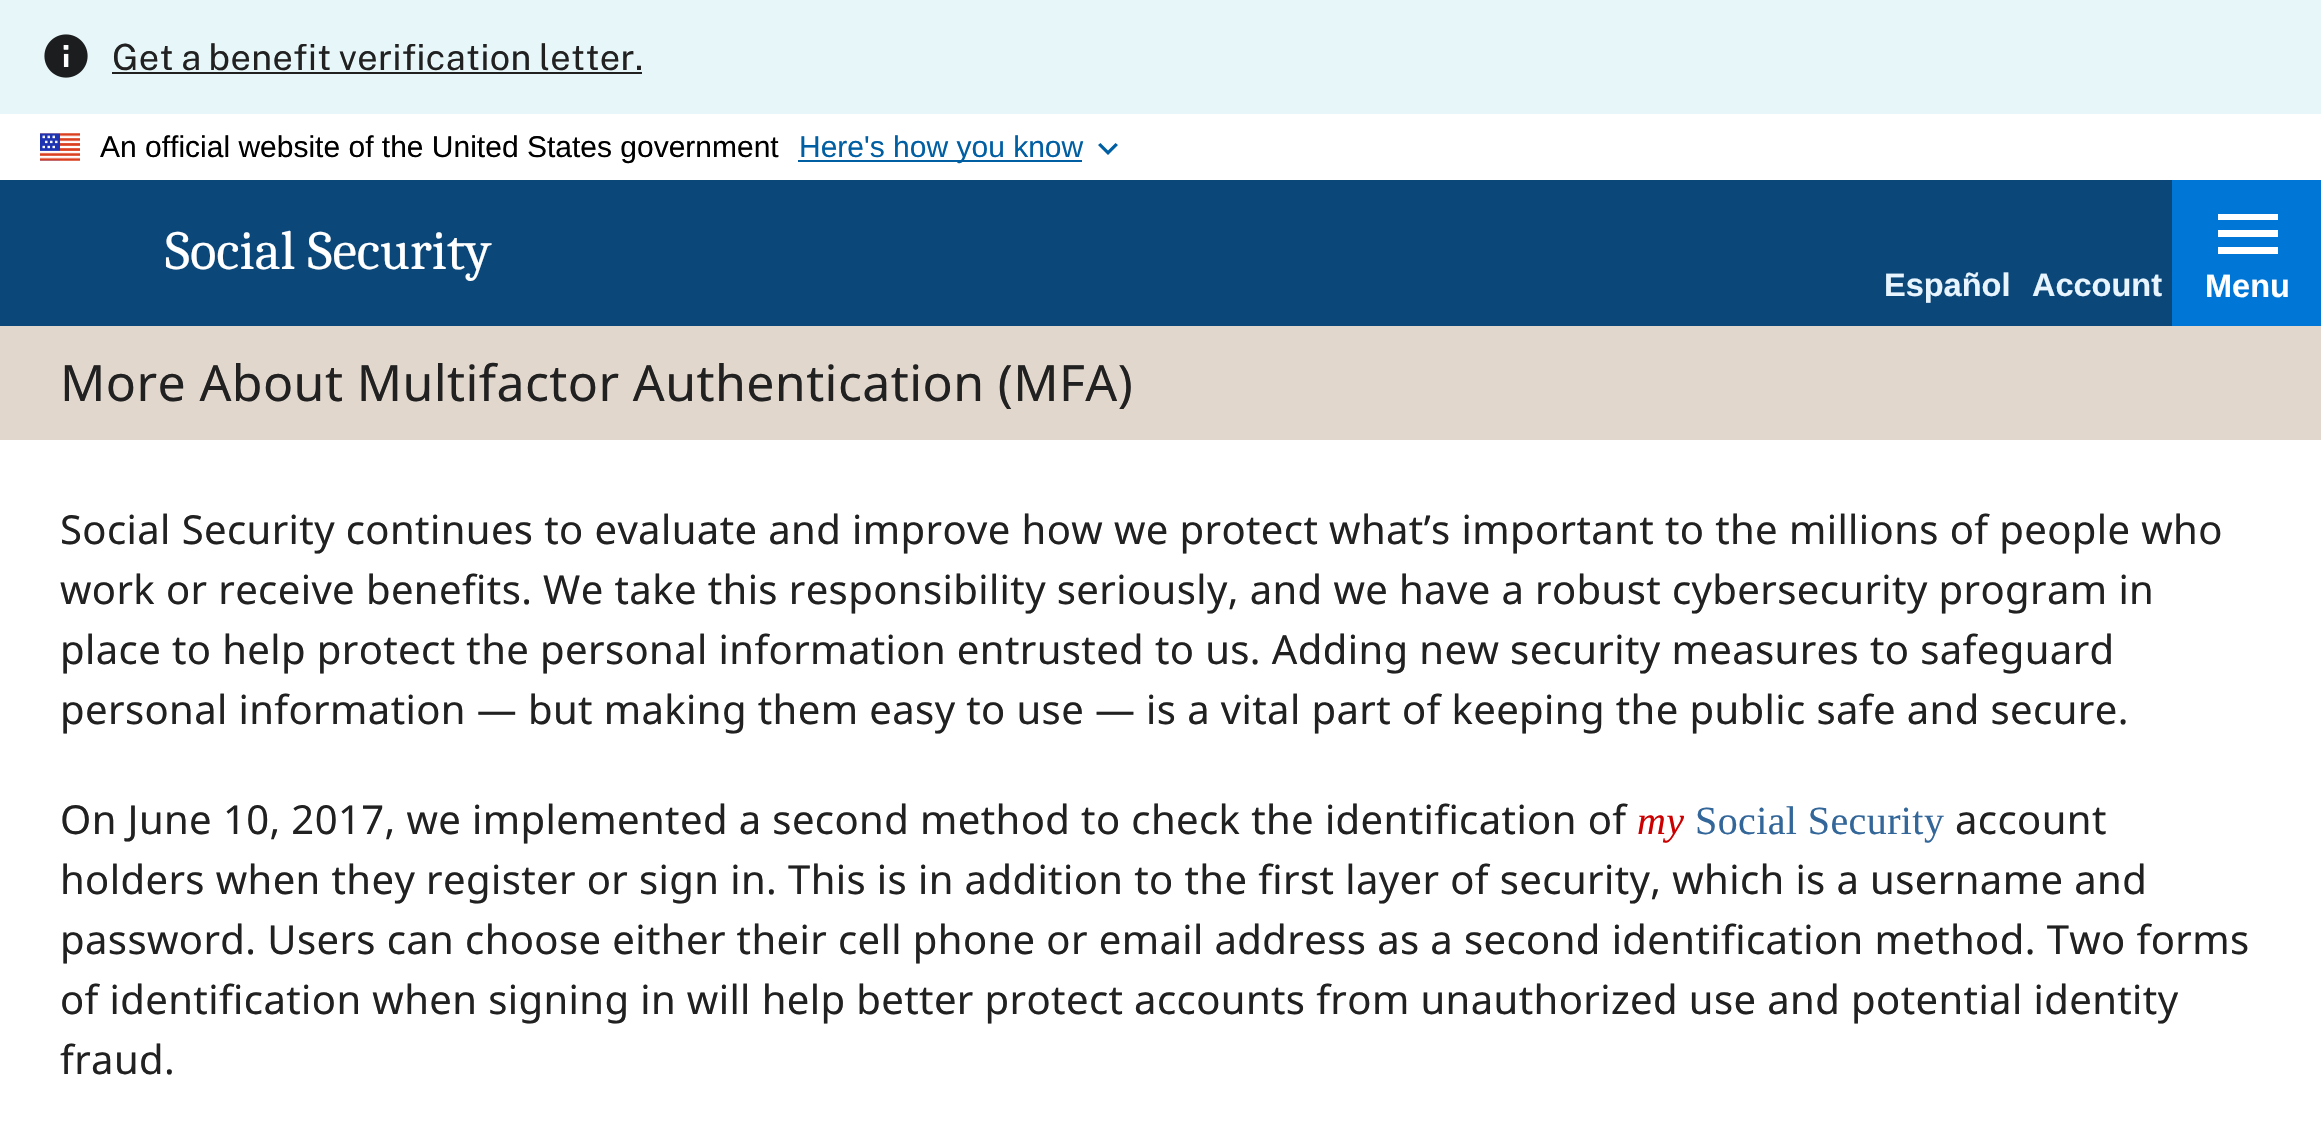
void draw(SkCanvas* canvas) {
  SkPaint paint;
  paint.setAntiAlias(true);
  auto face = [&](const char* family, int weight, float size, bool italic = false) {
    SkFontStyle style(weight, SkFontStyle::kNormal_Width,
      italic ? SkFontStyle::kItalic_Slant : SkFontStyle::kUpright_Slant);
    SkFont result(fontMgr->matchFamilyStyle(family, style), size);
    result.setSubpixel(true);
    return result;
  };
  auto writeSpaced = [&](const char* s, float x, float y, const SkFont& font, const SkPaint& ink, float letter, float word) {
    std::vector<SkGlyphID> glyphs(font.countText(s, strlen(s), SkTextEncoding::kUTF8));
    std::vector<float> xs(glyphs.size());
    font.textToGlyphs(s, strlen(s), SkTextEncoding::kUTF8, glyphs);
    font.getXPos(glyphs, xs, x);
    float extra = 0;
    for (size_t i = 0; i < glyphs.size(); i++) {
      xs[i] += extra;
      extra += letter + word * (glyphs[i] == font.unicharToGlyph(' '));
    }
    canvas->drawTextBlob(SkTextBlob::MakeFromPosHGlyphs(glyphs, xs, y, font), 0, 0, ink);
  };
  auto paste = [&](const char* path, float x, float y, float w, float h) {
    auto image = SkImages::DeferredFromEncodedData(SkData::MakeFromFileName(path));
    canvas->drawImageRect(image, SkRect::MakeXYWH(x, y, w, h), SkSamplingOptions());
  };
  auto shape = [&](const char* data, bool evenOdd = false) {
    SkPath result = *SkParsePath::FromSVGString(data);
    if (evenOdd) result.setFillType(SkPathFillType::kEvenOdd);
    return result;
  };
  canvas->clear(0xffe7f6f8);
  paste("img/1.png", 44, 34, 44, 44);
  paint.setColor(0xff212121);
  canvas->drawRect(SkRect::MakeXYWH(112, 72, 530, 2), paint);
  paint.setColor(0xffffffff);
  canvas->drawRect(SkRect::MakeXYWH(0, 114, 2321, 66), paint);
  paste("img/2.png", 40, 133, 40, 28);
  paint.setColor(0xff005ea2);
  canvas->drawRect(SkRect::MakeXYWH(798, 160, 284, 2), paint);
  canvas->drawPath(shape("M1115.5 143L1108 150.5L1100.5 143L1098 145L1108 155L1118 145Z", true), paint);
  paint.setColor(0xff0b4778);
  canvas->drawRect(SkRect::MakeXYWH(0, 180, 2172, 146), paint);
  paint.setColor(0xff0076d6);
  canvas->drawRect(SkRect::MakeXYWH(2172, 180, 149, 146), paint);
  paint.setColor(0xffffffff);
  canvas->drawPath(shape("M2218 254H2278V247H2218ZM2218 237H2278V230H2218ZM2218 214V220H2278V214Z", true), paint);
  canvas->drawRect(SkRect::MakeXYWH(0, 440, 2321, 701), paint);
  paint.setColor(0xffe1d7cd);
  canvas->drawRect(SkRect::MakeXYWH(0, 326, 2321, 114), paint);
  auto f0 = face("Public Sans", 400, 36);
  paint.setColor(0xff212121);
  writeSpaced("Get a benefit verification letter.", 112, 70, f0, paint, 0.4f, -2);
  auto f1 = face("Liberation Sans", 400, 30);
  paint.setColor(0xff000000);
  canvas->drawString("An official website of the United States government", 100, 157, f1, paint);
  paint.setColor(0xff005ea2);
  canvas->drawString("Here's how you know", 799, 157, f1, paint);
  auto f2 = face("Caladea", 400, 55);
  paint.setColor(0xffffffff);
  canvas->drawString("Social Security", 165, 269, f2, paint);
  auto f3 = face("Liberation Sans", 700, 32.5f);
  paint.setColor(0xffe8f5ff);
  canvas->drawString("Español", 1884, 296, f3, paint);
  canvas->drawString("Account", 2032, 296, f3, paint);
  paint.setColor(0xffffffff);
  canvas->drawString("Menu", 2205, 297, f3, paint);
  auto f4 = face("Noto Sans", 400, 50);
  paint.setColor(0xff212121);
  writeSpaced("More About Multifactor Authentication (MFA)", 60, 401, f4, paint, 0.4f, 0);
  auto f5 = face("Noto Sans", 400, 40);
  {
    const struct { const char* s; float x, y; } items[] = {
      {"Social Security continues to evaluate and improve how we protect what’s important to the millions of people who", 60, 544},
      {"work or receive benefits. We take this responsibility seriously, and we have a robust cybersecurity program in", 60, 604},
      {"place to help protect the personal information entrusted to us. Adding new security measures to safeguard", 60, 664},
      {"personal information — but making them easy to use — is a vital part of keeping the public safe and secure.", 60, 724},
      {"On June 10, 2017, we implemented a second method to check the identification of", 60, 834},
    };
    for (auto [s, x, y] : items) {
      writeSpaced(s, x, y, f5, paint, 0.4f, 0);
    }
  }
  auto f6 = face("Liberation Serif", 400, 40, true);
  paint.setColor(0xffcc0000);
  writeSpaced("my", 1637, 834, f6, paint, 0.4f, 0);
  auto f7 = face("Liberation Serif", 400, 40);
  paint.setColor(0xff336699);
  writeSpaced("Social Security", 1695, 834, f7, paint, 0.4f, 0);
  paint.setColor(0xff212121);
  {
    const struct { const char* s; float x, y; } items[] = {
      {"account", 1955, 834},
      {"holders when they register or sign in. This is in addition to the first layer of security, which is a username and", 60, 894},
      {"password. Users can choose either their cell phone or email address as a second identification method. Two forms", 60, 954},
      {"of identification when signing in will help better protect accounts from unauthorized use and potential identity", 60, 1014},
      {"fraud.", 60, 1074},
    };
    for (auto [s, x, y] : items) {
      writeSpaced(s, x, y, f5, paint, 0.4f, 0);
    }
  }
}
